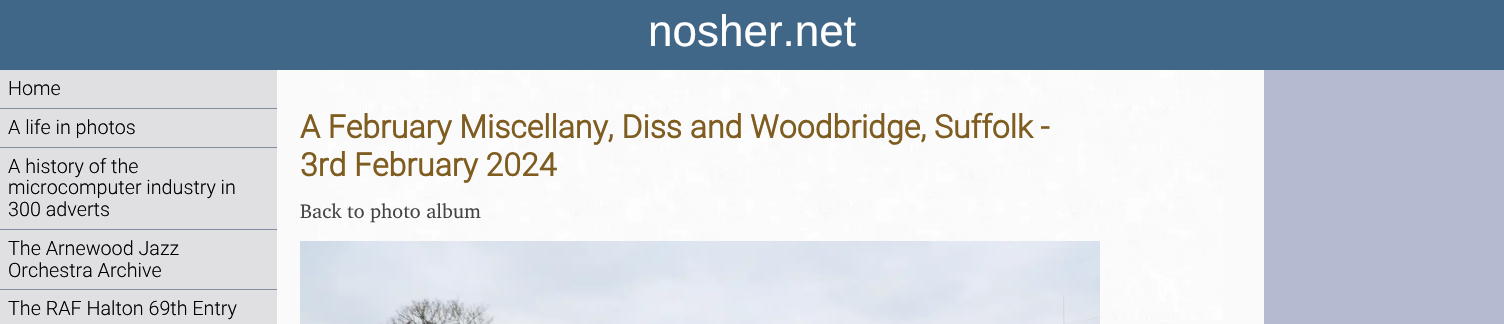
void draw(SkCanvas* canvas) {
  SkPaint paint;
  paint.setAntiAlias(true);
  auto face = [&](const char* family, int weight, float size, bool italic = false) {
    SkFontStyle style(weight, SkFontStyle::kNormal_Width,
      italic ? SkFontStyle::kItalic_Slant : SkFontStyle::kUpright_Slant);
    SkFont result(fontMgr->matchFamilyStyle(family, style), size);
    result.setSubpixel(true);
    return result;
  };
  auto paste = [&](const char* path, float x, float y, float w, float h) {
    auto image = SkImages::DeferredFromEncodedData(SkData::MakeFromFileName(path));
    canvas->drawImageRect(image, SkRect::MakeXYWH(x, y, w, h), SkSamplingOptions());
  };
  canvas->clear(0xfffafafa);
  {
    const struct { float x, y, w, h; SkColor color; } items[] = {
      {0, 0, 1504, 70, 0xff416788},
      {0, 70, 277, 254, 0xffe0e0e2},
      {0, 108, 277, 1, 0xff838ca0},
      {0, 147, 277, 1, 0xff838ca0},
      {0, 229, 277, 1, 0xff838ca0},
      {0, 289, 277, 1, 0xff838ca0},
    };
    for (auto [x, y, w, h, color] : items) {
      paint.setColor(color);
      canvas->drawRect(SkRect::MakeXYWH(x, y, w, h), paint);
    }
  }
  paste("img/1.png", 318, 70, 905, 251);
  paste("img/2.png", 300, 241, 800, 83);
  paint.setColor(0xffb5bad0);
  canvas->drawRect(SkRect::MakeXYWH(1264, 70, 240, 254), paint);
  auto f0 = face("Liberation Sans", 400, 44);
  paint.setColor(0xffffffff);
  canvas->drawString("nosher.net", 648, 46, f0, paint);
  auto f1 = face("Roboto", 300, 19.75f);
  paint.setColor(0xff000000);
  {
    const struct { const char* s; float x, y; } items[] = {
      {"Home", 8, 95},
      {"A life in photos", 8, 134},
      {"A history of the", 8, 173},
      {"microcomputer industry in", 8, 194},
      {"300 adverts", 8, 216},
      {"The Arnewood Jazz", 8, 255},
      {"Orchestra Archive", 8, 277},
      {"The RAF Halton 69th Entry", 8, 315},
    };
    for (auto [s, x, y] : items) {
      canvas->drawString(s, x, y, f1, paint);
    }
  }
  auto f2 = face("Roboto", 700, 32);
  paint.setColor(0xff7f5d21);
  canvas->drawString("A February Miscellany, Diss and Woodbridge, Suffolk -", 300, 138, f2, paint);
  canvas->drawString("3rd February 2024", 300, 176, f2, paint);
  auto f3 = face("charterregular", 400, 20);
  paint.setColor(0xff444444);
  canvas->drawString("Back to photo album", 300, 218, f3, paint);
}
